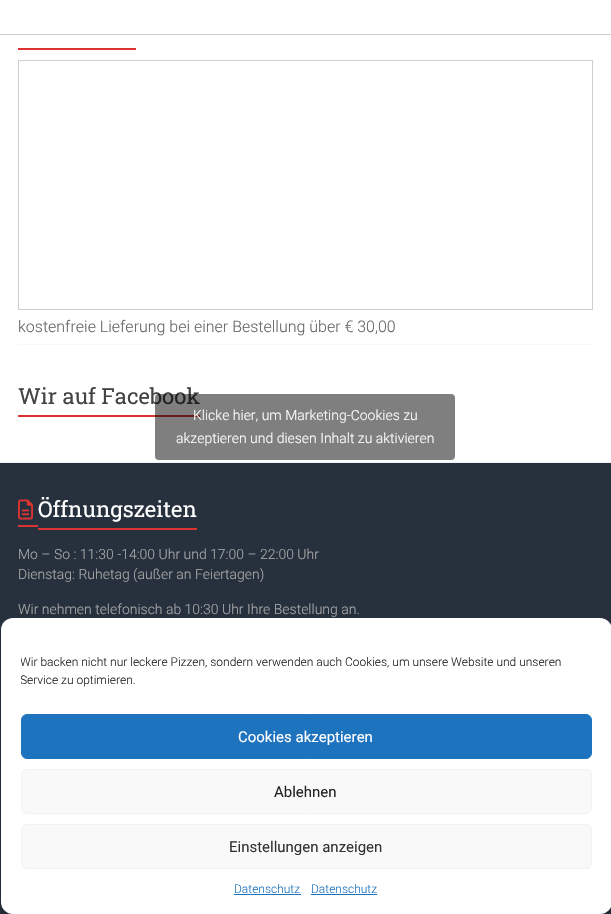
void draw(SkCanvas* canvas) {
  SkPaint paint;
  paint.setAntiAlias(true);
  auto face = [&](const char* family, int weight, float size, bool italic = false) {
    SkFontStyle style(weight, SkFontStyle::kNormal_Width,
      italic ? SkFontStyle::kItalic_Slant : SkFontStyle::kUpright_Slant);
    SkFont result(fontMgr->matchFamilyStyle(family, style), size);
    result.setSubpixel(true);
    return result;
  };
  auto paste = [&](const char* path, float x, float y, float w, float h) {
    auto image = SkImages::DeferredFromEncodedData(SkData::MakeFromFileName(path));
    canvas->drawImageRect(image, SkRect::MakeXYWH(x, y, w, h), SkSamplingOptions());
  };
  auto shape = [&](const char* data, bool evenOdd = false) {
    SkPath result = *SkParsePath::FromSVGString(data);
    if (evenOdd) result.setFillType(SkPathFillType::kEvenOdd);
    return result;
  };
  canvas->clear(0xffffffff);
  paint.setColor(0xffcecece);
  canvas->drawRect(SkRect::MakeXYWH(0, 34, 611, 1), paint);
  paint.setColor(0xffdd3333);
  canvas->drawRect(SkRect::MakeXYWH(18, 48, 118, 2), paint);
  paint.setStroke(true);
  paint.setStrokeWidth(1);
  paint.setColor(0xffcecece);
  canvas->drawRect(SkRect::MakeXYWH(18.5f, 60.5f, 574, 249), paint);
  paint.setStroke(false);
  {
    const struct { float x, y, w, h; SkColor color; } items[] = {
      {18, 344, 575, 1, 0xfff8f8f8},
      {18, 415, 182, 2, 0xffdd3333},
      {0, 463, 611, 451, 0xff27313d},
      {0, 462, 611, 1, 0xfff2f2f2},
    };
    for (auto [x, y, w, h, color] : items) {
      paint.setColor(color);
      canvas->drawRect(SkRect::MakeXYWH(x, y, w, h), paint);
    }
  }
  paste("img/1.png", 18, 499, 15, 21);
  paint.setColor(0xffdd3333);
  canvas->drawRect(SkRect::MakeXYWH(18, 525, 20, 2), paint);
  canvas->drawRect(SkRect::MakeXYWH(38, 528, 159, 2), paint);
  canvas->save();
  canvas->clipPath(shape("M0 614H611V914H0ZM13 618H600C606.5 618 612 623.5 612 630V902C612 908.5 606.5 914 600 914H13C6.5 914 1 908.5 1 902V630C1 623.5 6.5 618 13 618Z", true), true);
  paint.setColor(0x3b000000);
  paint.setMaskFilter(SkMaskFilter::MakeBlur(kNormal_SkBlurStyle, 3));
  canvas->drawRoundRect(SkRect::MakeXYWH(1, 624, 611, 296), 12, 12, paint);
  paint.setMaskFilter(nullptr);
  canvas->restore();
  paint.setColor(0xffffffff);
  canvas->drawRoundRect(SkRect::MakeXYWH(1, 618, 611, 296), 12, 12, paint);
  paint.setColor(0xff1e73be);
  canvas->drawRoundRect(SkRect::MakeXYWH(21.5f, 714.5f, 570, 44), 5.5f, 5.5f, paint);
  paint.setStroke(true);
  canvas->drawRoundRect(SkRect::MakeXYWH(21.5f, 714.5f, 570, 44), 5.5f, 5.5f, paint);
  paint.setStroke(false);
  paint.setColor(0xfff9f9f9);
  canvas->drawRoundRect(SkRect::MakeXYWH(21.5f, 769.5f, 570, 44), 5.5f, 5.5f, paint);
  paint.setStroke(true);
  paint.setColor(0xfff2f2f2);
  canvas->drawRoundRect(SkRect::MakeXYWH(21.5f, 769.5f, 570, 44), 5.5f, 5.5f, paint);
  paint.setStroke(false);
  paint.setColor(0xfff9f9f9);
  canvas->drawRoundRect(SkRect::MakeXYWH(21.5f, 824.5f, 570, 44), 5.5f, 5.5f, paint);
  paint.setStroke(true);
  paint.setColor(0xfff2f2f2);
  canvas->drawRoundRect(SkRect::MakeXYWH(21.5f, 824.5f, 570, 44), 5.5f, 5.5f, paint);
  paint.setStroke(false);
  paint.setColor(0xff1e73be);
  canvas->drawRect(SkRect::MakeXYWH(234, 894, 67, 1), paint);
  canvas->drawRect(SkRect::MakeXYWH(311, 894, 66, 1), paint);
  auto f0 = face("Roboto", 300, 16);
  paint.setColor(0xff666666);
  canvas->drawString("kostenfreie Lieferung bei einer Bestellung über € 30,00", 18, 332, f0, paint);
  auto f1 = face("Roboto Slab", 400, 22);
  paint.setColor(0xff444444);
  canvas->drawString("Wir auf Facebook", 18, 404, f1, paint);
  paint.setColor(0x80000000);
  canvas->drawRoundRect(SkRect::MakeXYWH(155, 394, 300, 66), 4, 4, paint);
  auto f2 = face("Roboto", 300, 14);
  paint.setColor(0xffffffff);
  canvas->drawString("Klicke hier, um Marketing-Cookies zu", 193, 420, f2, paint);
  canvas->drawString("akzeptieren und diesen Inhalt zu aktivieren", 176, 443, f2, paint);
  canvas->drawString("Öffnungszeiten", 38, 517, f1, paint);
  paint.setColor(0xffaaaaaa);
  {
    const struct { const char* s; float x, y; } items[] = {
      {"Mo – So : 11:30 -14:00 Uhr und 17:00 – 22:00 Uhr", 18, 559},
      {"Dienstag: Ruhetag (außer an Feiertagen)", 18, 579},
      {"Wir nehmen telefonisch ab 10:30 Uhr Ihre Bestellung an.", 18, 614},
    };
    for (auto [s, x, y] : items) {
      canvas->drawString(s, x, y, f2, paint);
    }
  }
  canvas->save();
  canvas->clipRect(SkRect::MakeXYWH(21, 653, 571, 41));
  auto f3 = face("Roboto", 300, 12);
  paint.setColor(0xff222222);
  canvas->drawString("Wir backen nicht nur leckere Pizzen, sondern verwenden auch Cookies, um unsere Website und unseren", 20, 666, f3, paint);
  canvas->drawString("Service zu optimieren.", 20, 684, f3, paint);
  canvas->restore();
  auto f4 = face("Roboto", 400, 15);
  paint.setColor(0xffffffff);
  canvas->drawString("Cookies akzeptieren", 238, 742, f4, paint);
  paint.setColor(0xff222222);
  canvas->drawString("Ablehnen", 274, 797, f4, paint);
  paint.setColor(0xff333333);
  canvas->drawString("Einstellungen anzeigen", 229, 852, f4, paint);
  paint.setColor(0xff1e73be);
  canvas->drawString("Datenschutz", 234, 893, f3, paint);
  canvas->drawString("Datenschutz", 311, 893, f3, paint);
}
